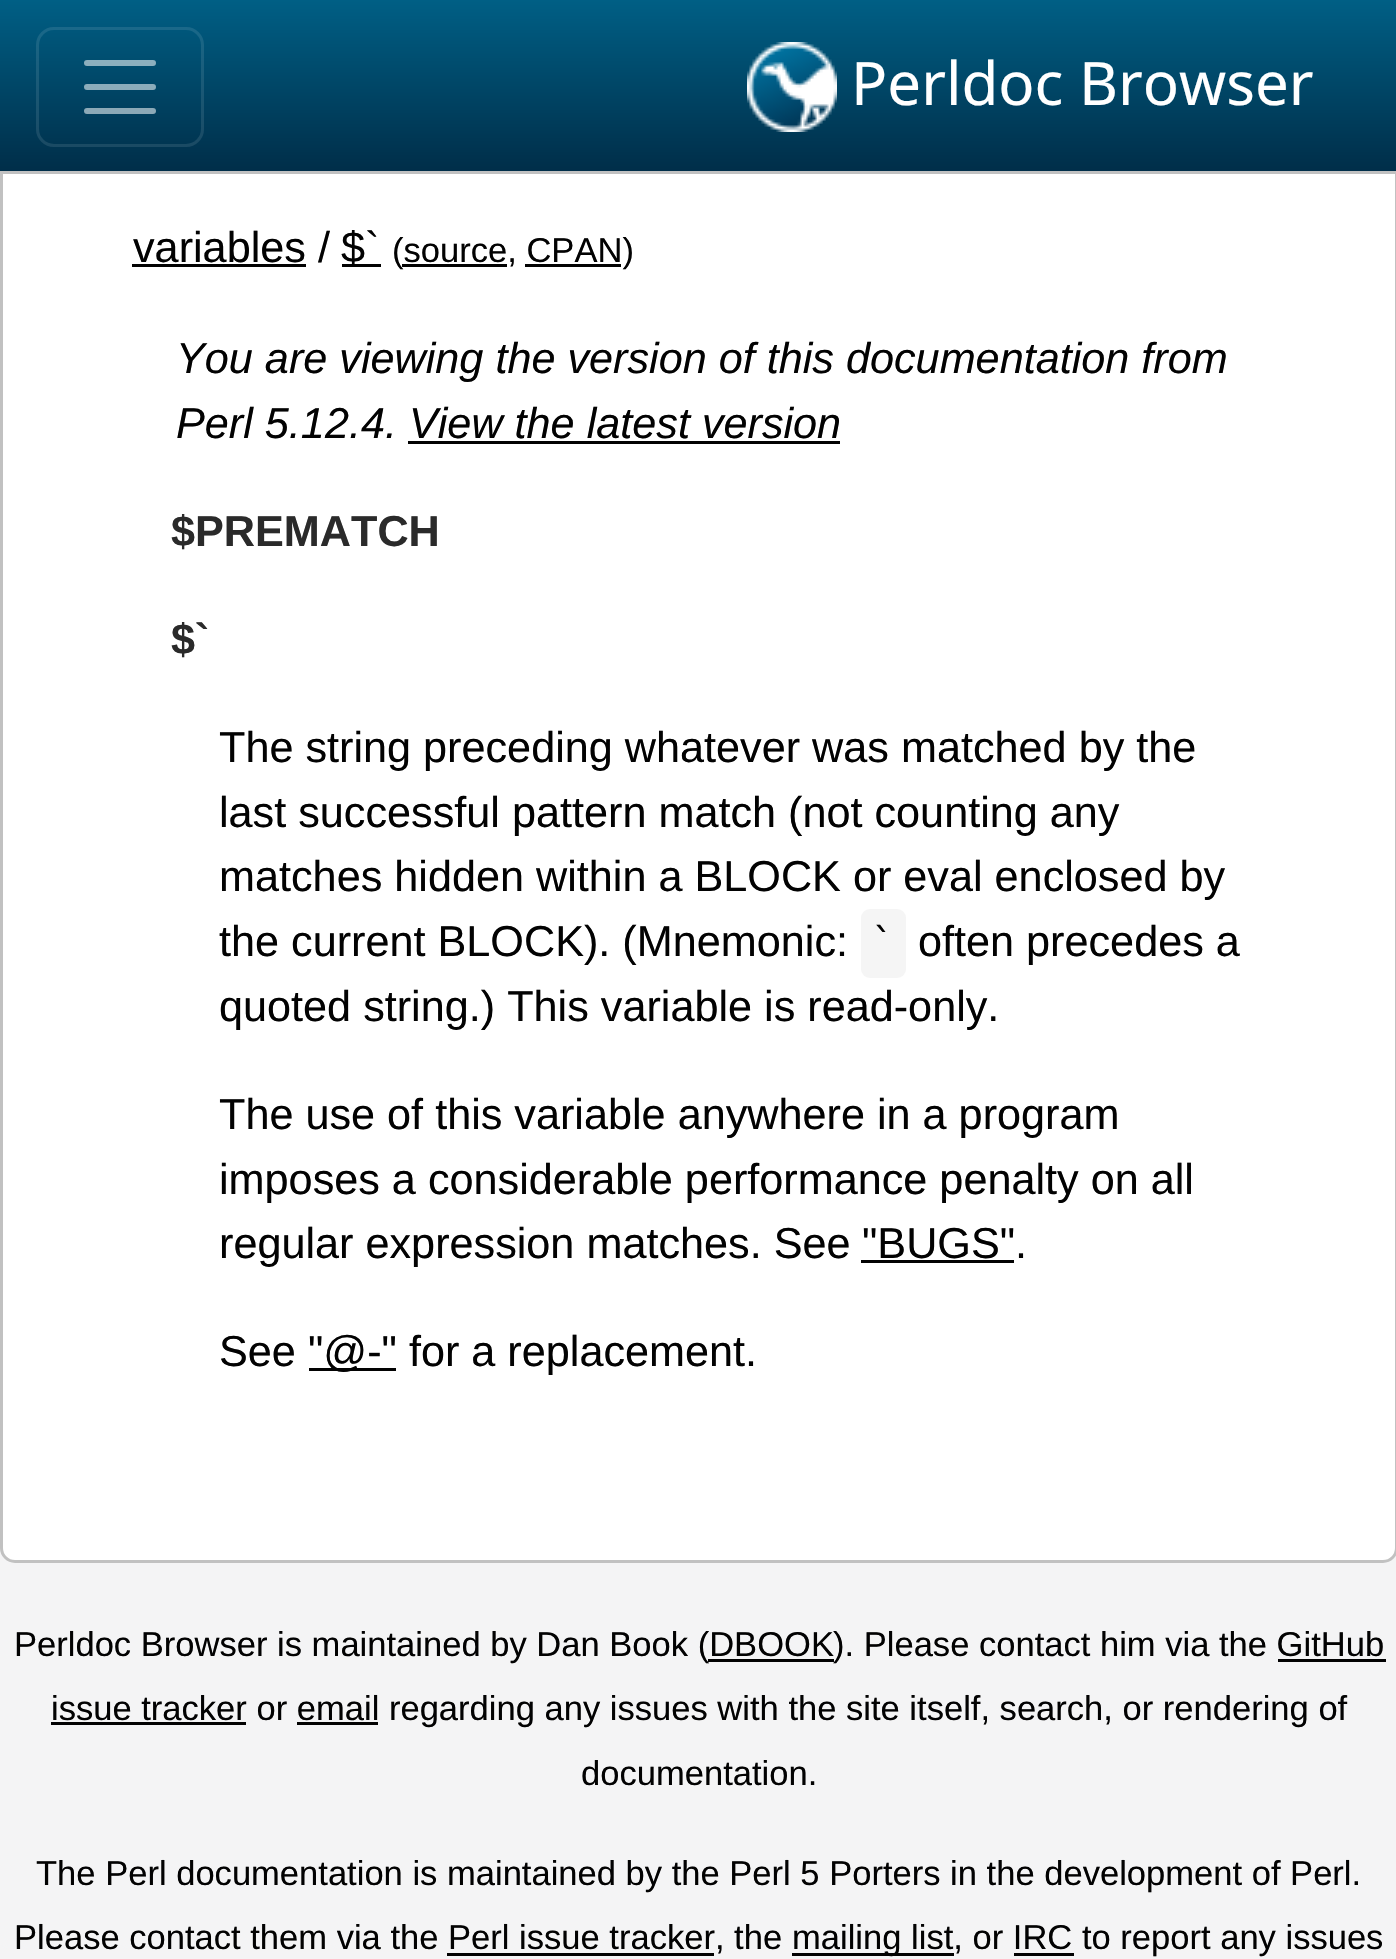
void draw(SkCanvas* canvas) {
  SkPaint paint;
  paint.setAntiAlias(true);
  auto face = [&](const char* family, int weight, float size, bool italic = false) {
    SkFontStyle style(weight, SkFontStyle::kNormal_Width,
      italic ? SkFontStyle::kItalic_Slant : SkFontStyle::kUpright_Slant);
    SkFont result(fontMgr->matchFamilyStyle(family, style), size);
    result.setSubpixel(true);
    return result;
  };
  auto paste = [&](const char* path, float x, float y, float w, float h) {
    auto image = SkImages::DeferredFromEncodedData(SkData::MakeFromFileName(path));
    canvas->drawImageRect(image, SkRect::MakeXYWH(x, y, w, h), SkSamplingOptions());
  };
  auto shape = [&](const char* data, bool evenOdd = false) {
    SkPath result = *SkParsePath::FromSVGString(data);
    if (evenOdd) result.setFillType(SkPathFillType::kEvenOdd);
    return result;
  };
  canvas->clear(0xfff4f4f5);
  {
    const SkColor colors[] = {0xff005f85, 0xff002e49};
    const float stops[] = {0, 1};
    const SkPoint ends[] = {{699, 0}, {699, 171}};
    paint.setShader(SkGradientShader::MakeLinear(ends, colors, stops, 2, SkTileMode::kClamp));
    paint.setAlpha(255);
  }
  canvas->drawRect(SkRect::MakeXYWH(0, 0, 1396, 171), paint);
  paint.setStroke(true);
  paint.setStrokeWidth(3);
  paint.setShader(nullptr);
  paint.setColor(0x1affffff);
  canvas->drawRoundRect(SkRect::MakeXYWH(37.5f, 28.5f, 165, 117), 16.5f, 16.5f, paint);
  paint.setStrokeWidth(6);
  paint.setStrokeCap(SkPaint::kRound_Cap);
  paint.setColor(0x8cffffff);
  canvas->drawPath(shape("M87 63H153M87 87H153M87 111H153"), paint);
  paste("img/1.png", 747, 42, 90, 90);
  paint.setStroke(false);
  paint.setColor(0xffffffff);
  canvas->drawPath(shape("M1.5 172.5H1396.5V1548C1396.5 1555.5 1390.5 1561.5 1383 1561.5H15C7.5 1561.5 1.5 1555.5 1.5 1548Z"), paint);
  paint.setStroke(true);
  paint.setStrokeWidth(3);
  paint.setStrokeCap(SkPaint::kButt_Cap);
  paint.setColor(0xffc1c1c1);
  canvas->drawPath(shape("M1.5 172.5H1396.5V1548C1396.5 1555.5 1390.5 1561.5 1383 1561.5H15C7.5 1561.5 1.5 1555.5 1.5 1548Z"), paint);
  paint.setStroke(false);
  {
    const struct { float x, y, w, h; SkColor color; } items[] = {
      {132, 264, 174, 3, 0xff020202},
      {342, 264, 39, 3, 0xff020202},
      {402, 264, 105, 3, 0xff020202},
      {525, 264, 96, 3, 0xff020202},
      {408, 441, 432, 3, 0xff020202},
    };
    for (auto [x, y, w, h, color] : items) {
      paint.setColor(color);
      canvas->drawRect(SkRect::MakeXYWH(x, y, w, h), paint);
    }
  }
  paint.setColor(0xfff5f5f5);
  canvas->drawRoundRect(SkRect::MakeXYWH(861, 909, 45, 69), 9, 9, paint);
  {
    const struct { float x, y, w, h; SkColor color; } items[] = {
      {861, 1260, 153, 3, 0xff020202},
      {309, 1368, 87, 3, 0xff020202},
      {708, 1659, 126, 3, 0xff020202},
      {1278, 1659, 108, 3, 0xff020202},
      {51, 1722, 195, 3, 0xff020202},
      {297, 1722, 81, 3, 0xff020202},
      {792, 1953, 162, 3, 0xff020202},
      {447, 1953, 267, 3, 0xff020202},
      {1014, 1953, 60, 3, 0xff020202},
    };
    for (auto [x, y, w, h, color] : items) {
      paint.setColor(color);
      canvas->drawRect(SkRect::MakeXYWH(x, y, w, h), paint);
    }
  }
  auto f0 = face("Noto Sans", 400, 60);
  paint.setColor(0xffffffff);
  canvas->drawString("Perldoc Browser", 851, 105, f0, paint);
  auto f1 = face("Liberation Sans", 400, 43.2f);
  paint.setColor(0xff020202);
  canvas->drawString("variables /", 133, 262, f1, paint);
  canvas->drawString("$`", 341, 262, f1, paint);
  auto f2 = face("Liberation Sans", 400, 34.55f);
  canvas->drawString("(source, CPAN)", 392, 262, f2, paint);
  auto f3 = face("Liberation Sans", 400, 43.2f, true);
  canvas->drawString("You are viewing the version of this documentation from", 176, 373, f3, paint);
  canvas->drawString("Perl 5.12.4. View the latest version", 176, 438, f3, paint);
  auto f4 = face("Liberation Sans", 700, 43.2f);
  paint.setColor(0xff2a2a2a);
  canvas->drawString("$PREMATCH", 171, 546, f4, paint);
  canvas->drawString("$`", 171, 654, f4, paint);
  paint.setColor(0xff020202);
  {
    const struct { const char* s; float x, y; } items[] = {
      {"The string preceding whatever was matched by the", 219, 762},
      {"last successful pattern match (not counting any", 219, 827},
      {"matches hidden within a BLOCK or eval enclosed by", 219, 891},
      {"the current BLOCK). (Mnemonic:", 219, 956},
    };
    for (auto [s, x, y] : items) {
      canvas->drawString(s, x, y, f1, paint);
    }
  }
  auto f5 = face("DejaVu Sans Mono", 400, 39);
  canvas->drawString("`", 871, 956, f5, paint);
  {
    const struct { const char* s; float x, y; } items[] = {
      {"often precedes a", 918, 956},
      {"quoted string.) This variable is read-only.", 219, 1021},
      {"The use of this variable anywhere in a program", 219, 1129},
      {"imposes a considerable performance penalty on all", 219, 1194},
      {"regular expression matches. See", 219, 1258},
      {"\"BUGS\".", 862, 1258},
      {"See", 219, 1366},
      {"\"@-\" for a replacement.", 308, 1366},
    };
    for (auto [s, x, y] : items) {
      canvas->drawString(s, x, y, f1, paint);
    }
  }
  {
    const struct { const char* s; float x, y; } items[] = {
      {"Perldoc Browser is maintained by Dan Book (DBOOK", 14, 1656},
      {"). Please contact him via the GitHub", 833, 1656},
      {"issue tracker or email regarding any issues with the site itself, search, or rendering of", 51, 1720},
      {"documentation.", 581, 1785},
      {"The Perl documentation is maintained by the Perl 5 Porters in the development of Perl.", 36, 1885},
      {"Please contact them via the Perl issue tracker, the", 14, 1949},
      {"mailing list, or IRC to report any issues", 792, 1949},
    };
    for (auto [s, x, y] : items) {
      canvas->drawString(s, x, y, f2, paint);
    }
  }
}
